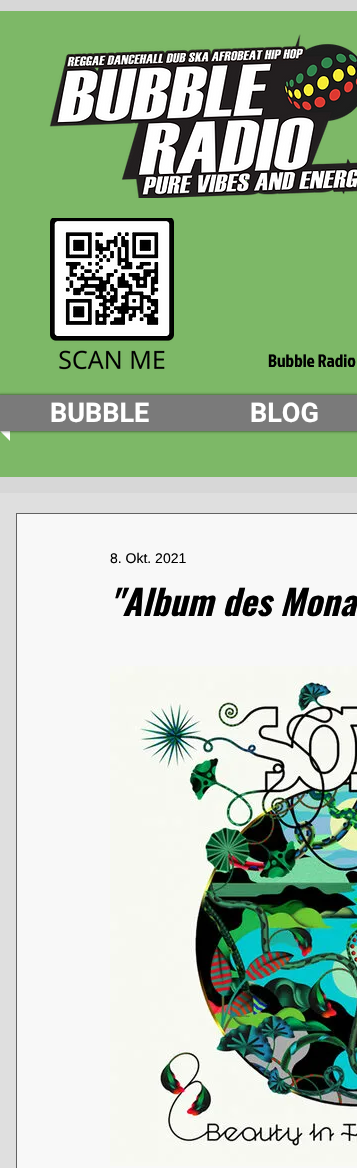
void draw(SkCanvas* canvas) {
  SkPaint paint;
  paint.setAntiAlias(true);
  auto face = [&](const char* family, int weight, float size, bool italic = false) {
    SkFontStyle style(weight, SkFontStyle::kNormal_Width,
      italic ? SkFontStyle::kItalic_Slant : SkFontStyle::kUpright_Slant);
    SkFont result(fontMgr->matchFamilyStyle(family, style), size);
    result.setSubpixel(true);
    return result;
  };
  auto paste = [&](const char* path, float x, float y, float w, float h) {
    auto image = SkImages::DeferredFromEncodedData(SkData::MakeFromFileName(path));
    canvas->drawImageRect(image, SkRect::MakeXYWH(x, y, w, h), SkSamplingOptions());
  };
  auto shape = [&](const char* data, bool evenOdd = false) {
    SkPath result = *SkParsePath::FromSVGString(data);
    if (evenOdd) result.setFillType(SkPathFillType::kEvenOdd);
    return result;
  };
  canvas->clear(0xffd7d7d7);
  paint.setColor(0xff7db867);
  canvas->drawRect(SkRect::MakeXYWH(0, 11, 357, 466), paint);
  paste("img/1.png", 49, 34, 308, 164);
  paste("img/2.png", 50, 218, 124, 152);
  paint.setColor(0xffffffff);
  canvas->drawPath(shape("M0 431H10V441Z"), paint);
  paint.setColor(0xb3000000);
  paint.setMaskFilter(SkMaskFilter::MakeBlur(kNormal_SkBlurStyle, 1.5f));
  canvas->drawRect(SkRect::MakeXYWH(-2, 395, 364, 36), paint);
  paint.setMaskFilter(nullptr);
  paint.setColor(0xff7a7a7a);
  canvas->drawRect(SkRect::MakeXYWH(0, 395, 357, 36), paint);
  paint.setColor(0xffdfdfdf);
  canvas->drawRect(SkRect::MakeXYWH(0, 493, 357, 675), paint);
  paint.setColor(0xfff8f8f8);
  canvas->drawRect(SkRect::MakeXYWH(16.5f, 513.5f, 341, 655), paint);
  paint.setStroke(true);
  paint.setStrokeWidth(1);
  paint.setColor(0xff626262);
  canvas->drawRect(SkRect::MakeXYWH(16.5f, 513.5f, 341, 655), paint);
  paste("img/3.png", 110, 666, 247, 500);
  auto f0 = face("Jockey One", 400, 18);
  paint.setStroke(false);
  paint.setColor(0xff000000);
  canvas->drawString("Bubble Radio", 268, 367, f0, paint);
  auto f1 = face("Roboto", 700, 27);
  paint.setColor(0xffffffff);
  canvas->drawString("BUBBLE", 50, 422, f1, paint);
  canvas->drawString("BLOG", 250, 422, f1, paint);
  auto f2 = face("Liberation Sans", 400, 14);
  paint.setColor(0xff000000);
  canvas->drawString("8. Okt. 2021", 110, 563, f2, paint);
  auto f3 = face("Oswald", 700, 35, true);
  canvas->drawString("\"Album des Mona", 110, 616, f3, paint);
}
